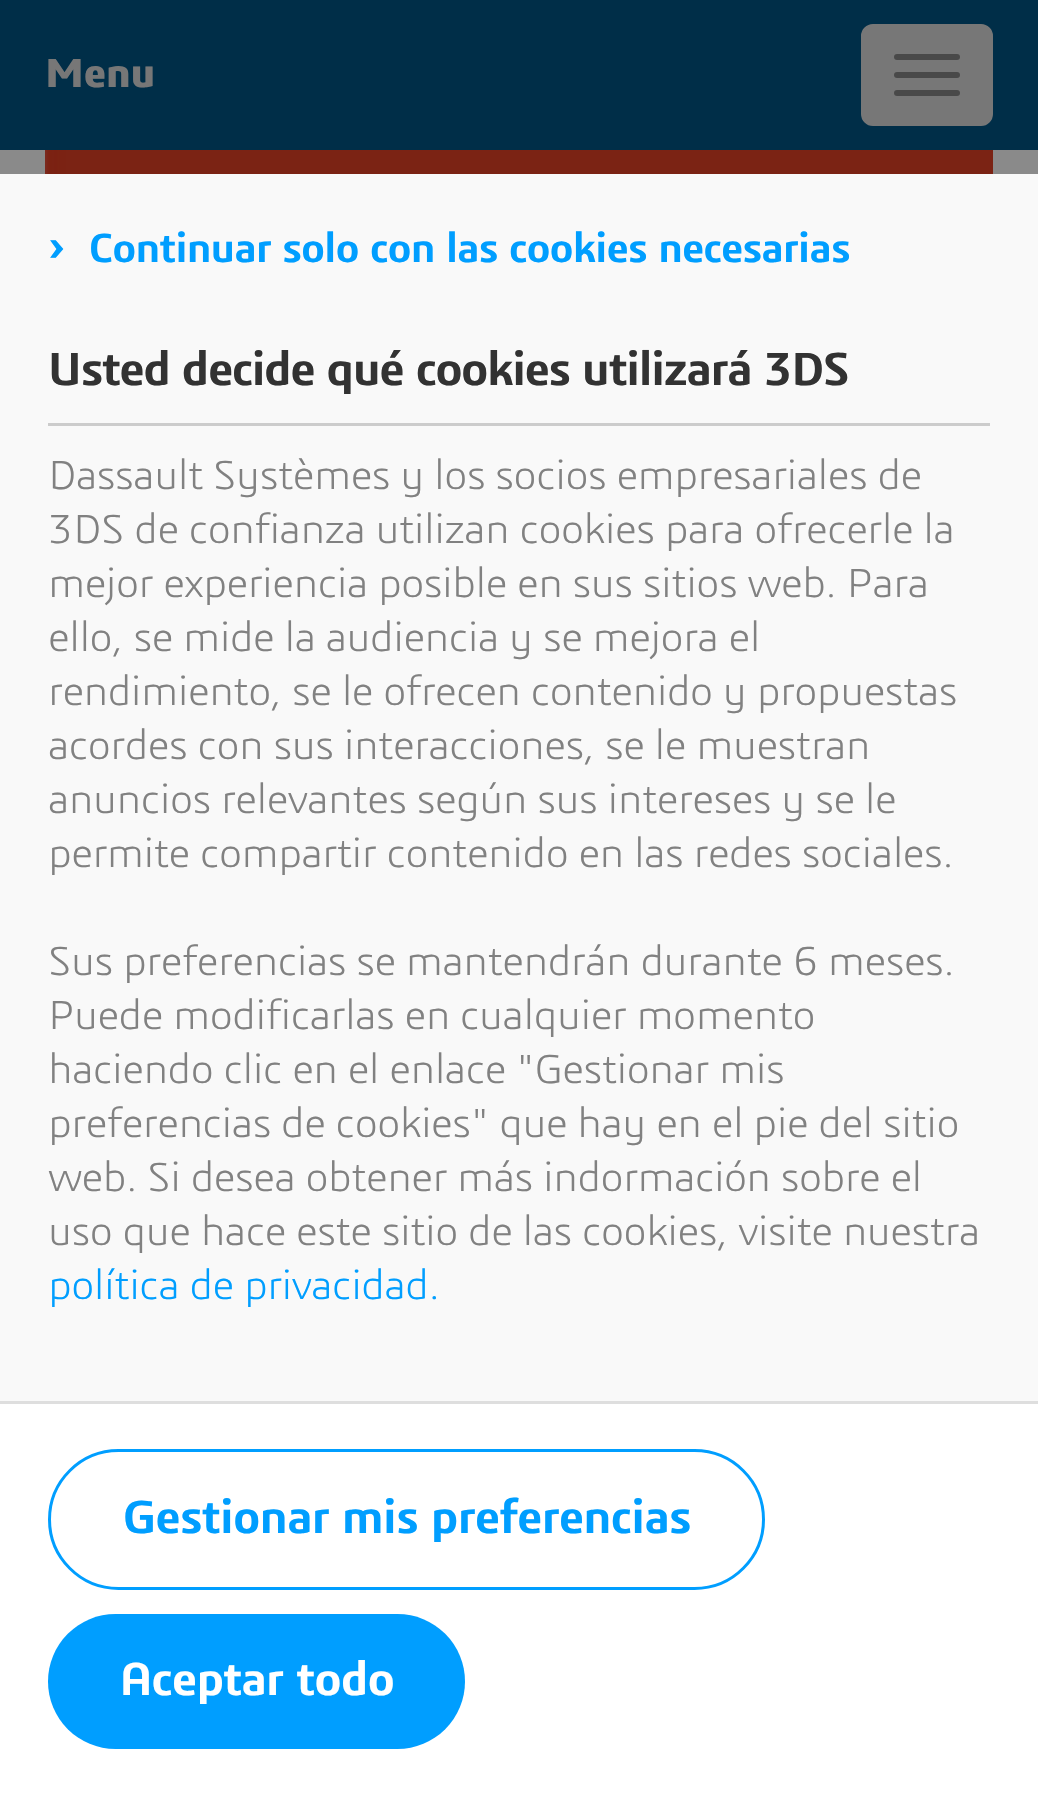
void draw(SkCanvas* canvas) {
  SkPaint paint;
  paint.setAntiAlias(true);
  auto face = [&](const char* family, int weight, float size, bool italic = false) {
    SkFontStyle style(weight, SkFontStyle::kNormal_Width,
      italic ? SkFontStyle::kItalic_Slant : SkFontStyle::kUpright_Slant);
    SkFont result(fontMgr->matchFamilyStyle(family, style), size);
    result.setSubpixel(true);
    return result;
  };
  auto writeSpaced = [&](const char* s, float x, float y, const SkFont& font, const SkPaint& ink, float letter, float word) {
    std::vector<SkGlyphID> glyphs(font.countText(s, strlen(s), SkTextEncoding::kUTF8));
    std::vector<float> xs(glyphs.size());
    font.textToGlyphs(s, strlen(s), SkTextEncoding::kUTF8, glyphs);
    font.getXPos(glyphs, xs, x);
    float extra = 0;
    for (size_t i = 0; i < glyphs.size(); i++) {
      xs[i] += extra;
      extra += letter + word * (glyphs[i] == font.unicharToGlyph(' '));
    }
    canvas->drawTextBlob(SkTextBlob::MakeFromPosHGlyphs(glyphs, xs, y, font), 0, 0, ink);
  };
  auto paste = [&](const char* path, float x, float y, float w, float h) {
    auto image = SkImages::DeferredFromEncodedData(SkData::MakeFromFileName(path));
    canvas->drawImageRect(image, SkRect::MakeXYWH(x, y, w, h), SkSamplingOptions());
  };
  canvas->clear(0xff8a8a8a);
  paint.setColor(0xff002e48);
  canvas->drawRect(SkRect::MakeXYWH(0, 0, 1038, 150), paint);
  paint.setColor(0xff777777);
  canvas->drawRoundRect(SkRect::MakeXYWH(862.5f, 25.5f, 129, 99), 10.5f, 10.5f, paint);
  paint.setStroke(true);
  paint.setStrokeWidth(3);
  canvas->drawRoundRect(SkRect::MakeXYWH(862.5f, 25.5f, 129, 99), 10.5f, 10.5f, paint);
  paint.setStroke(false);
  paint.setColor(0xff494949);
  canvas->drawRoundRect(SkRect::MakeXYWH(894, 54, 66, 6), 3, 3, paint);
  canvas->drawRoundRect(SkRect::MakeXYWH(894, 72, 66, 6), 3, 3, paint);
  canvas->drawRoundRect(SkRect::MakeXYWH(894, 90, 66, 6), 3, 3, paint);
  paste("img/1.png", 45, 150, 948, 24);
  {
    const struct { float x, y, w, h; SkColor color; } items[] = {
      {0, 174, 1038, 1227, 0xfff9f9f9},
      {48, 423, 942, 3, 0xffcccccc},
      {0, 1404, 1038, 389, 0xffffffff},
      {0, 1401, 1038, 3, 0xffdedede},
    };
    for (auto [x, y, w, h, color] : items) {
      paint.setColor(color);
      canvas->drawRect(SkRect::MakeXYWH(x, y, w, h), paint);
    }
  }
  paint.setStroke(true);
  paint.setColor(0xff009eff);
  canvas->drawRoundRect(SkRect::MakeXYWH(49.5f, 1450.5f, 714, 138), 69, 69, paint);
  paint.setStroke(false);
  canvas->drawRoundRect(SkRect::MakeXYWH(48, 1614, 417, 135), 67.5f, 67.5f, paint);
  auto f0 = face("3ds", 700, 42);
  paint.setColor(0xff777777);
  canvas->drawString("Menu", 45, 87, f0, paint);
  auto f1 = face("3ds", 600, 48);
  paint.setColor(0xff009eff);
  writeSpaced("›", 48, 262, f1, paint, -0.6f, 0);
  auto f2 = face("3ds", 600, 42);
  writeSpaced("Continuar solo con las cookies necesarias", 89, 262, f2, paint, -0.6f, 0);
  paint.setColor(0xff323232);
  writeSpaced("Usted decide qué cookies utilizará 3DS", 48, 385, f1, paint, -1.2f, 0);
  auto f3 = face("3ds", 300, 42);
  paint.setColor(0xff818181);
  {
    const struct { const char* s; float x, y; } items[] = {
      {"Dassault Systèmes y los socios empresariales de", 48, 489},
      {"3DS de confianza utilizan cookies para ofrecerle la", 48, 543},
      {"mejor experiencia posible en sus sitios web. Para", 48, 597},
      {"ello, se mide la audiencia y se mejora el", 48, 651},
      {"rendimiento, se le ofrecen contenido y propuestas", 48, 705},
      {"acordes con sus interacciones, se le muestran", 48, 759},
      {"anuncios relevantes según sus intereses y se le", 48, 813},
      {"permite compartir contenido en las redes sociales.", 48, 867},
      {"Sus preferencias se mantendrán durante 6 meses.", 48, 975},
      {"Puede modificarlas en cualquier momento", 48, 1029},
      {"haciendo clic en el enlace \"Gestionar mis", 48, 1083},
      {"preferencias de cookies\" que hay en el pie del sitio", 48, 1137},
      {"web. Si desea obtener más indormación sobre el", 48, 1191},
      {"uso que hace este sitio de las cookies, visite nuestra", 48, 1245},
    };
    for (auto [s, x, y] : items) {
      writeSpaced(s, x, y, f3, paint, -0.48f, 0);
    }
  }
  paint.setColor(0xff009eff);
  writeSpaced("política de privacidad.", 48, 1299, f3, paint, -0.48f, 0);
  writeSpaced("Gestionar mis preferencias", 123, 1533, f1, paint, -0.6f, 0);
  paint.setColor(0xffffffff);
  writeSpaced("Aceptar todo", 120, 1695, f1, paint, -0.6f, 0);
}
